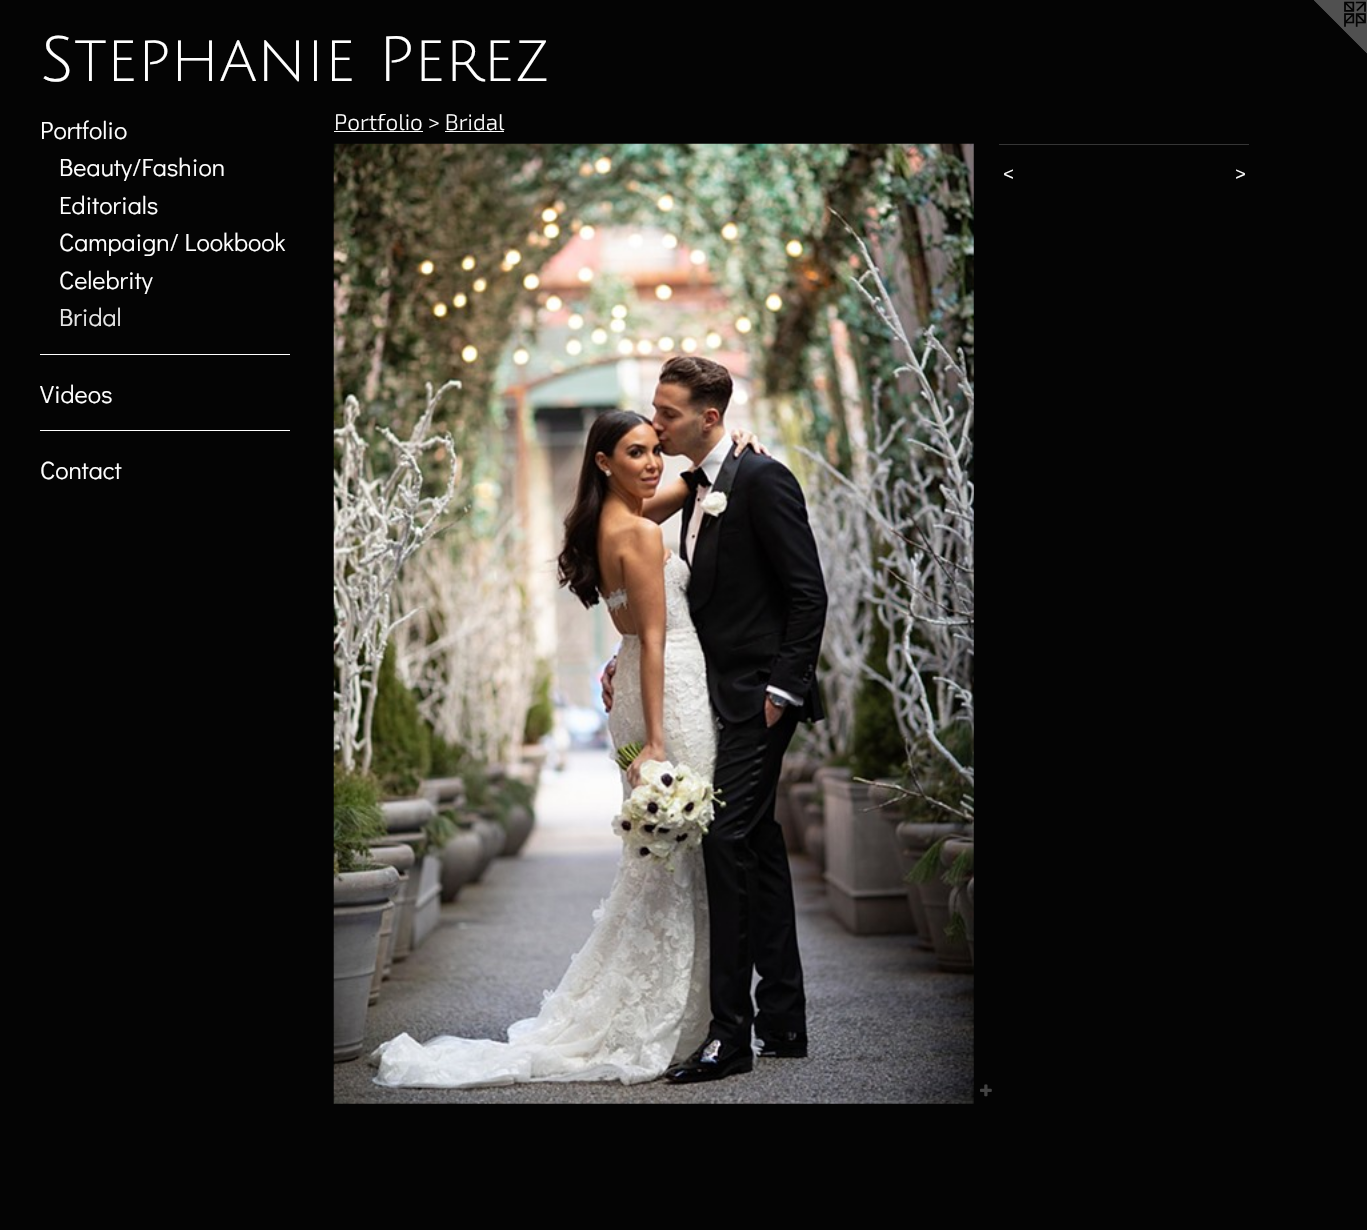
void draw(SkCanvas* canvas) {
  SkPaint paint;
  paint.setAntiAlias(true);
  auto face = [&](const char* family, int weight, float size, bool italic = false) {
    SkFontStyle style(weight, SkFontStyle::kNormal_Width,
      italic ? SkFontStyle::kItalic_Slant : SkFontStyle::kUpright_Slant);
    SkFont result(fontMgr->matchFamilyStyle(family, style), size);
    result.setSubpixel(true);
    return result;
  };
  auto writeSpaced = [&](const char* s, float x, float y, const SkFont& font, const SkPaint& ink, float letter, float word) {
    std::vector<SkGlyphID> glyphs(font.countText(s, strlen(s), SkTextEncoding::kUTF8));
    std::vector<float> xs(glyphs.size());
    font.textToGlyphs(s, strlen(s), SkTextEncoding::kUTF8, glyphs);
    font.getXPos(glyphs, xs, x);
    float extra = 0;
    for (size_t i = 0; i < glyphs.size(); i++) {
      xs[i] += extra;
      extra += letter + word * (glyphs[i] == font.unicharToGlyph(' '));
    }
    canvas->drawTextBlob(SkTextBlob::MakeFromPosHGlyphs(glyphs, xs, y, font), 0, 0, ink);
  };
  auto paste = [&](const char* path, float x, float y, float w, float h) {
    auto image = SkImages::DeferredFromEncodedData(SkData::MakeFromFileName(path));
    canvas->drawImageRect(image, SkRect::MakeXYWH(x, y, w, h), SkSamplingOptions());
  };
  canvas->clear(0xff040404);
  paste("img/1.png", 1314, 0, 53, 54);
  {
    const struct { float x, y, w, h; SkColor color; } items[] = {
      {40, 354, 250, 1, 0xffffffff},
      {40, 430, 250, 1, 0xffffffff},
      {334, 131, 89, 1, 0xffffffff},
      {445, 131, 59, 1, 0xffffffff},
    };
    for (auto [x, y, w, h, color] : items) {
      paint.setColor(color);
      canvas->drawRect(SkRect::MakeXYWH(x, y, w, h), paint);
    }
  }
  paste("img/2.png", 333, 143, 641, 961);
  paste("img/3.png", 980, 1084, 12, 13);
  paint.setColor(0xff363636);
  canvas->drawRect(SkRect::MakeXYWH(999, 144, 250, 1), paint);
  auto f0 = face("Julius Sans One", 400, 62.5f);
  paint.setColor(0xffffffff);
  canvas->drawString("Stephanie Perez", 40, 81, f0, paint);
  auto f1 = face("Didact Gothic", 400, 25);
  {
    const struct { const char* s; float x, y; } items[] = {
      {"Portfolio", 40, 139},
      {"Beauty/Fashion", 59, 176},
      {"Editorials", 59, 214},
      {"Campaign/ Lookbook", 59, 251},
      {"Celebrity", 59, 289},
    };
    for (auto [s, x, y] : items) {
      canvas->drawString(s, x, y, f1, paint);
    }
  }
  paint.setColor(0xffe6e6e6);
  canvas->drawString("Bridal", 59, 326, f1, paint);
  paint.setColor(0xffffffff);
  canvas->drawString("Videos", 40, 403, f1, paint);
  canvas->drawString("Contact", 40, 479, f1, paint);
  auto f2 = face("Exo 2", 300, 22.5f);
  canvas->drawString("Portfolio > Bridal", 334, 130, f2, paint);
  auto f3 = face("Liberation Sans", 400, 18, true);
  writeSpaced("<", 1003, 180, f3, paint, 1, 0);
  writeSpaced(">", 1235, 180, f3, paint, 1, 0);
}
